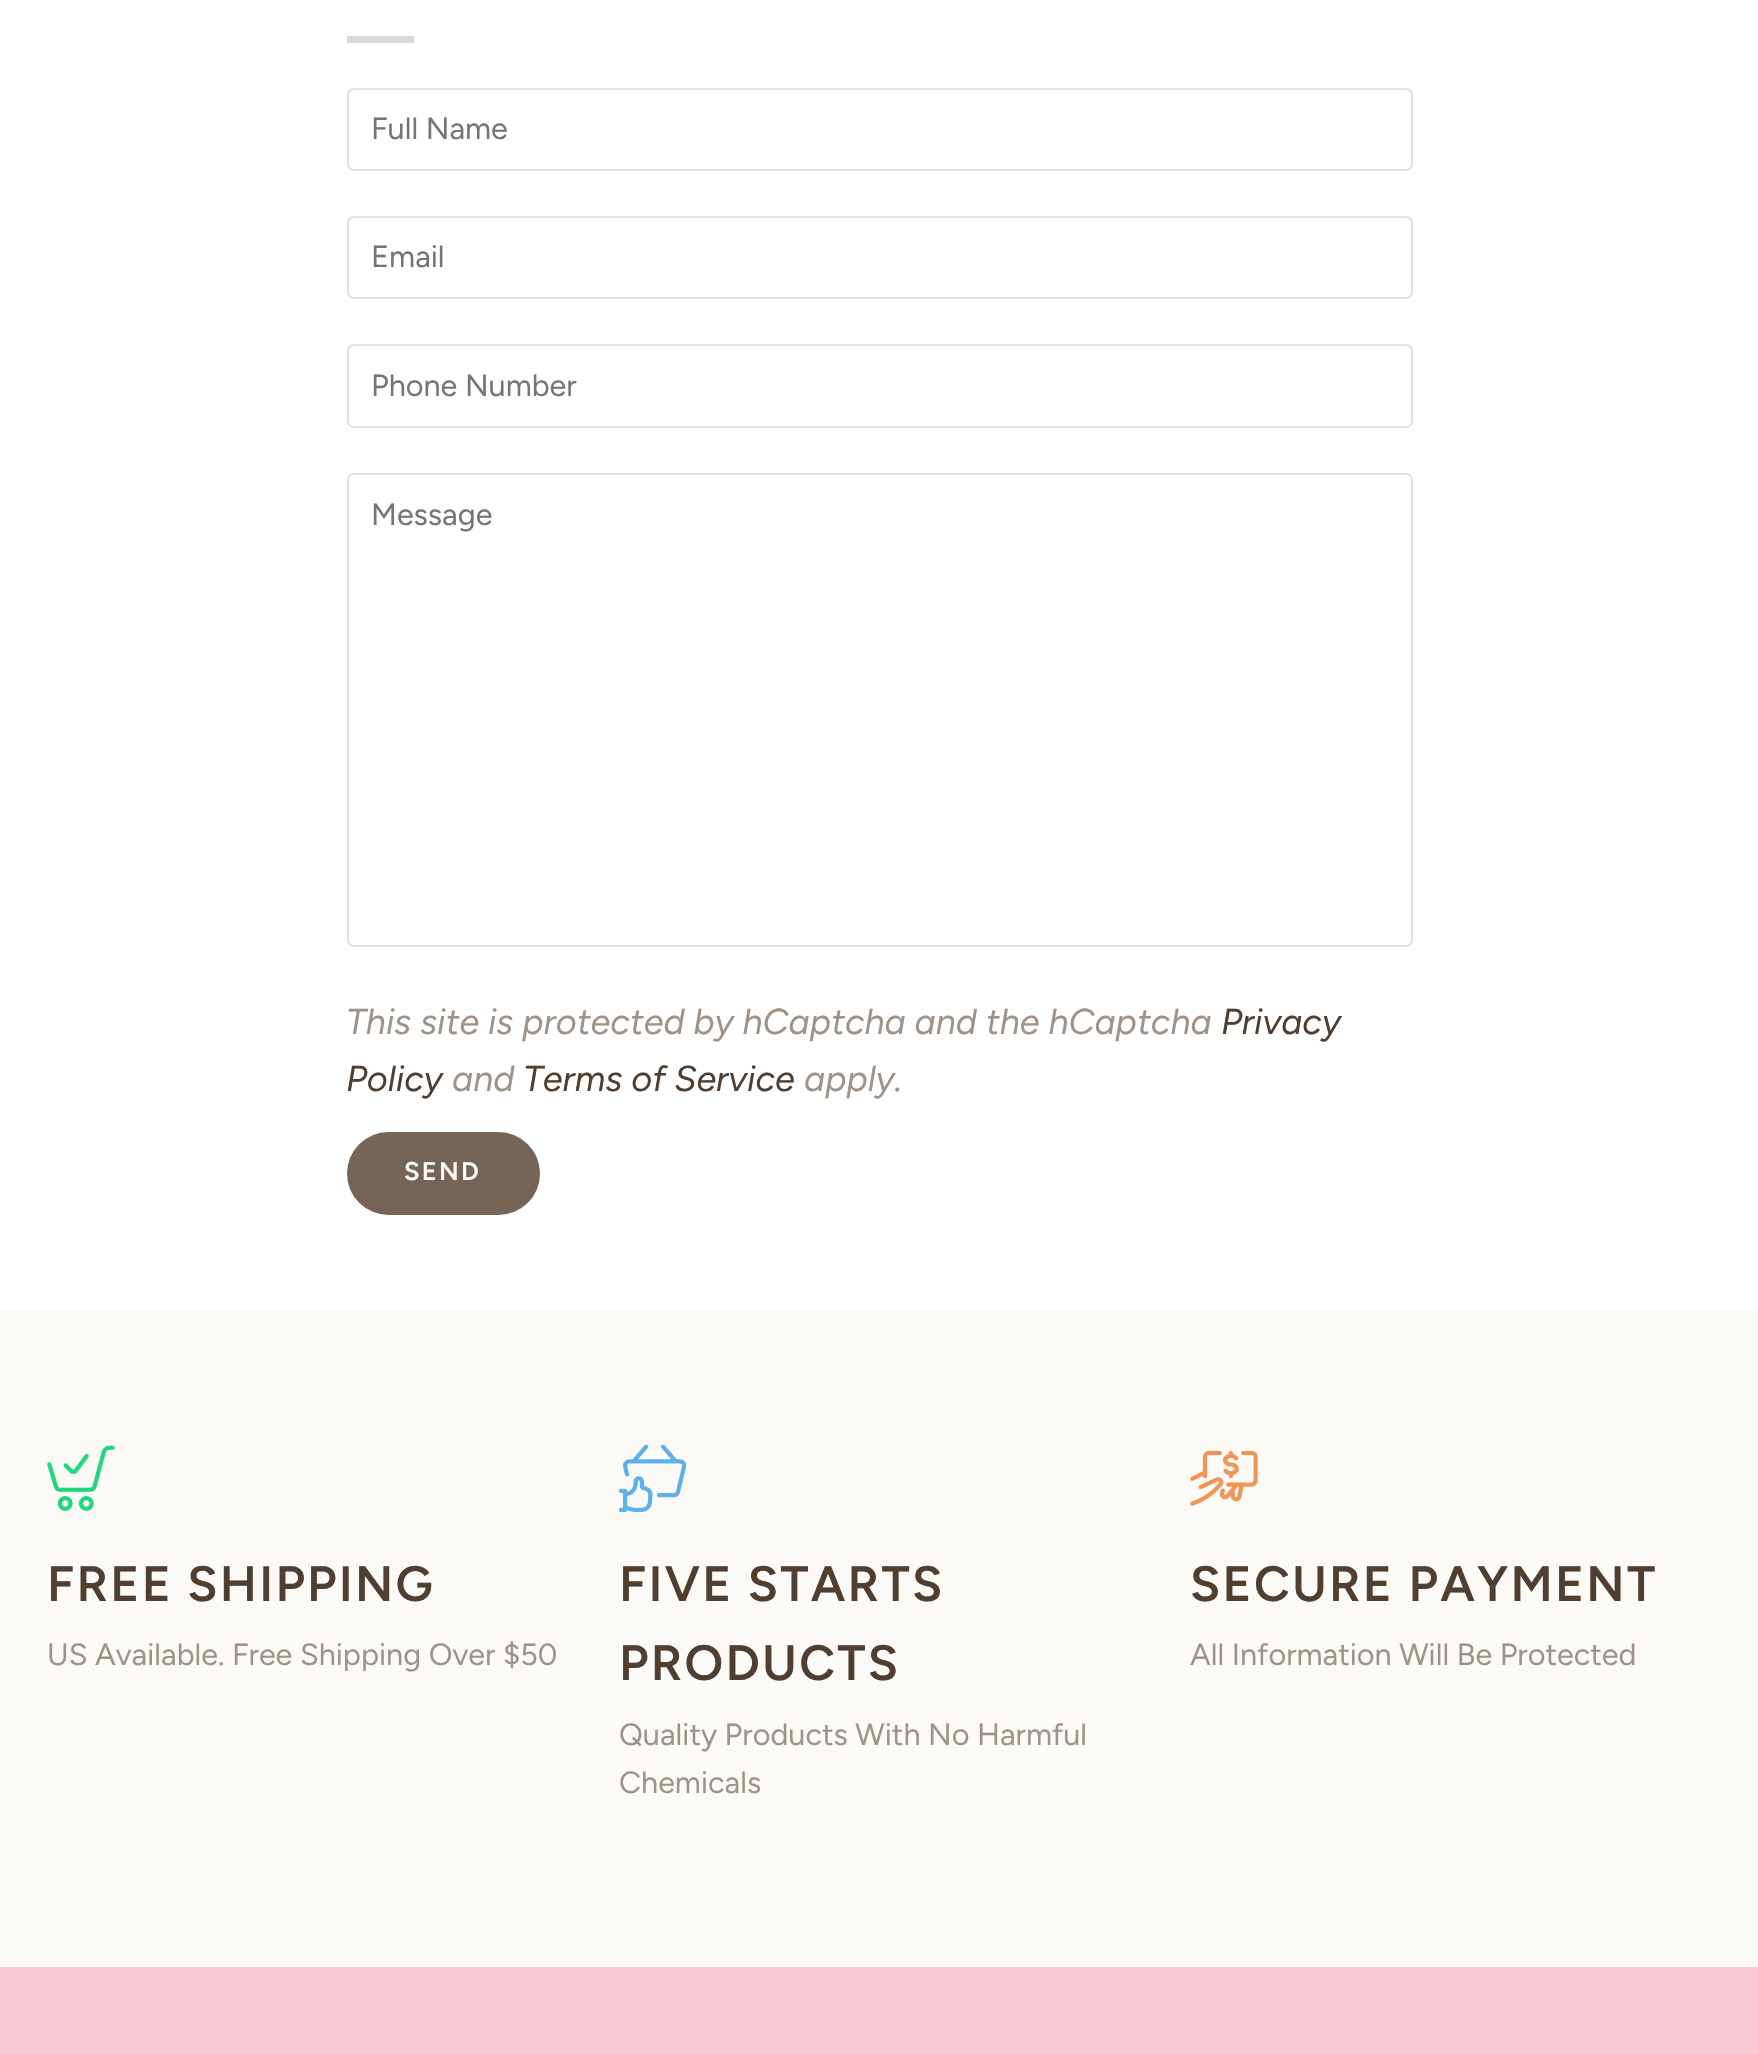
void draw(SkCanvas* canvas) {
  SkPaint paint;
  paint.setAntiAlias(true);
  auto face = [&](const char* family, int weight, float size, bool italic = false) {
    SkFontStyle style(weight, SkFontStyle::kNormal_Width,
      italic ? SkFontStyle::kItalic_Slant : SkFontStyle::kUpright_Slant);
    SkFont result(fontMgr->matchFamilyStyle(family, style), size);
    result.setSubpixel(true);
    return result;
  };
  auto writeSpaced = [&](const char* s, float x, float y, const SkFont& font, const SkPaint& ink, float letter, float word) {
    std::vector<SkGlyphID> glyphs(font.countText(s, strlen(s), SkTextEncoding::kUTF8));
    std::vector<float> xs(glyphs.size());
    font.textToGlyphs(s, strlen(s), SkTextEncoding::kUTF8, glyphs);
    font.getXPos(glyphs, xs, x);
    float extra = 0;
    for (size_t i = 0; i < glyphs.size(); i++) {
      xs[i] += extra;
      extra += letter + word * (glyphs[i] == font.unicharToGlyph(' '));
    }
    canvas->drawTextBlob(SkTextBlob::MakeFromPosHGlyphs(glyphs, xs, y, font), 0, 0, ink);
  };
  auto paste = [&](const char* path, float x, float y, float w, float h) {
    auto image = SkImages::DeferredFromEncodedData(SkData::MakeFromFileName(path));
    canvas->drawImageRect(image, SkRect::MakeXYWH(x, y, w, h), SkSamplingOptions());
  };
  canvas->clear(0xffffffff);
  paint.setColor(0xffdcd8d6);
  canvas->drawRect(SkRect::MakeXYWH(347, 36, 67, 7), paint);
  paint.setStroke(true);
  paint.setStrokeWidth(2);
  paint.setColor(0xffe4e0dd);
  canvas->drawRoundRect(SkRect::MakeXYWH(348, 89, 1064, 81), 6, 6, paint);
  canvas->drawRoundRect(SkRect::MakeXYWH(348, 217, 1064, 81), 6, 6, paint);
  canvas->drawRoundRect(SkRect::MakeXYWH(348, 345, 1064, 82), 6, 6, paint);
  canvas->drawRoundRect(SkRect::MakeXYWH(348, 474, 1064, 472), 6, 6, paint);
  paint.setStroke(false);
  paint.setColor(0xff766456);
  canvas->drawRoundRect(SkRect::MakeXYWH(347, 1132, 193, 83), 41.5f, 41.5f, paint);
  paint.setColor(0xfffcfaf7);
  canvas->drawRect(SkRect::MakeXYWH(0, 1310, 1758, 657), paint);
  paste("img/1.png", 47, 1445, 68, 66);
  paste("img/2.png", 619, 1445, 67, 67);
  paste("img/3.png", 1190, 1450, 68, 56);
  paint.setColor(0xfff7c9d3);
  canvas->drawRect(SkRect::MakeXYWH(0, 1967, 1758, 87), paint);
  auto f0 = face("Figtree", 400, 30.6f);
  paint.setColor(0xff757575);
  {
    const struct { const char* s; float x, y; } items[] = {
      {"Full Name", 371, 139},
      {"Email", 371, 267},
      {"Phone Number", 371, 396},
      {"Message", 371, 525},
    };
    for (auto [s, x, y] : items) {
      canvas->drawString(s, x, y, f0, paint);
    }
  }
  auto f1 = face("Figtree", 400, 36, true);
  paint.setColor(0xff9f9389);
  canvas->drawString("This site is protected by hCaptcha and the hCaptcha", 346, 1034, f1, paint);
  paint.setColor(0xff503e30);
  canvas->drawString("Privacy", 1221, 1034, f1, paint);
  canvas->drawString("Policy", 346, 1091, f1, paint);
  paint.setColor(0xff9f9389);
  canvas->drawString("and", 452, 1091, f1, paint);
  paint.setColor(0xff503e30);
  canvas->drawString("Terms of Service", 523, 1091, f1, paint);
  paint.setColor(0xff9f9389);
  canvas->drawString("apply.", 804, 1091, f1, paint);
  auto f2 = face("Figtree", 600, 25.5f);
  paint.setColor(0xffffffff);
  writeSpaced("SEND", 404, 1180, f2, paint, 2.25f, 0);
  auto f3 = face("Figtree", 600, 49.5f);
  paint.setColor(0xff503e30);
  writeSpaced("FREE SHIPPING", 47, 1601, f3, paint, 2.25f, 0);
  paint.setColor(0xff9f9389);
  canvas->drawString("US Available. Free Shipping Over $50", 47, 1665, f0, paint);
  paint.setColor(0xff503e30);
  writeSpaced("FIVE STARTS", 619, 1601, f3, paint, 2.25f, 0);
  writeSpaced("PRODUCTS", 619, 1680, f3, paint, 2.25f, 0);
  paint.setColor(0xff9f9389);
  canvas->drawString("Quality Products With No Harmful", 619, 1745, f0, paint);
  canvas->drawString("Chemicals", 619, 1793, f0, paint);
  paint.setColor(0xff503e30);
  writeSpaced("SECURE PAYMENT", 1190, 1601, f3, paint, 2.25f, 0);
  paint.setColor(0xff9f9389);
  canvas->drawString("All Information Will Be Protected", 1190, 1665, f0, paint);
}
